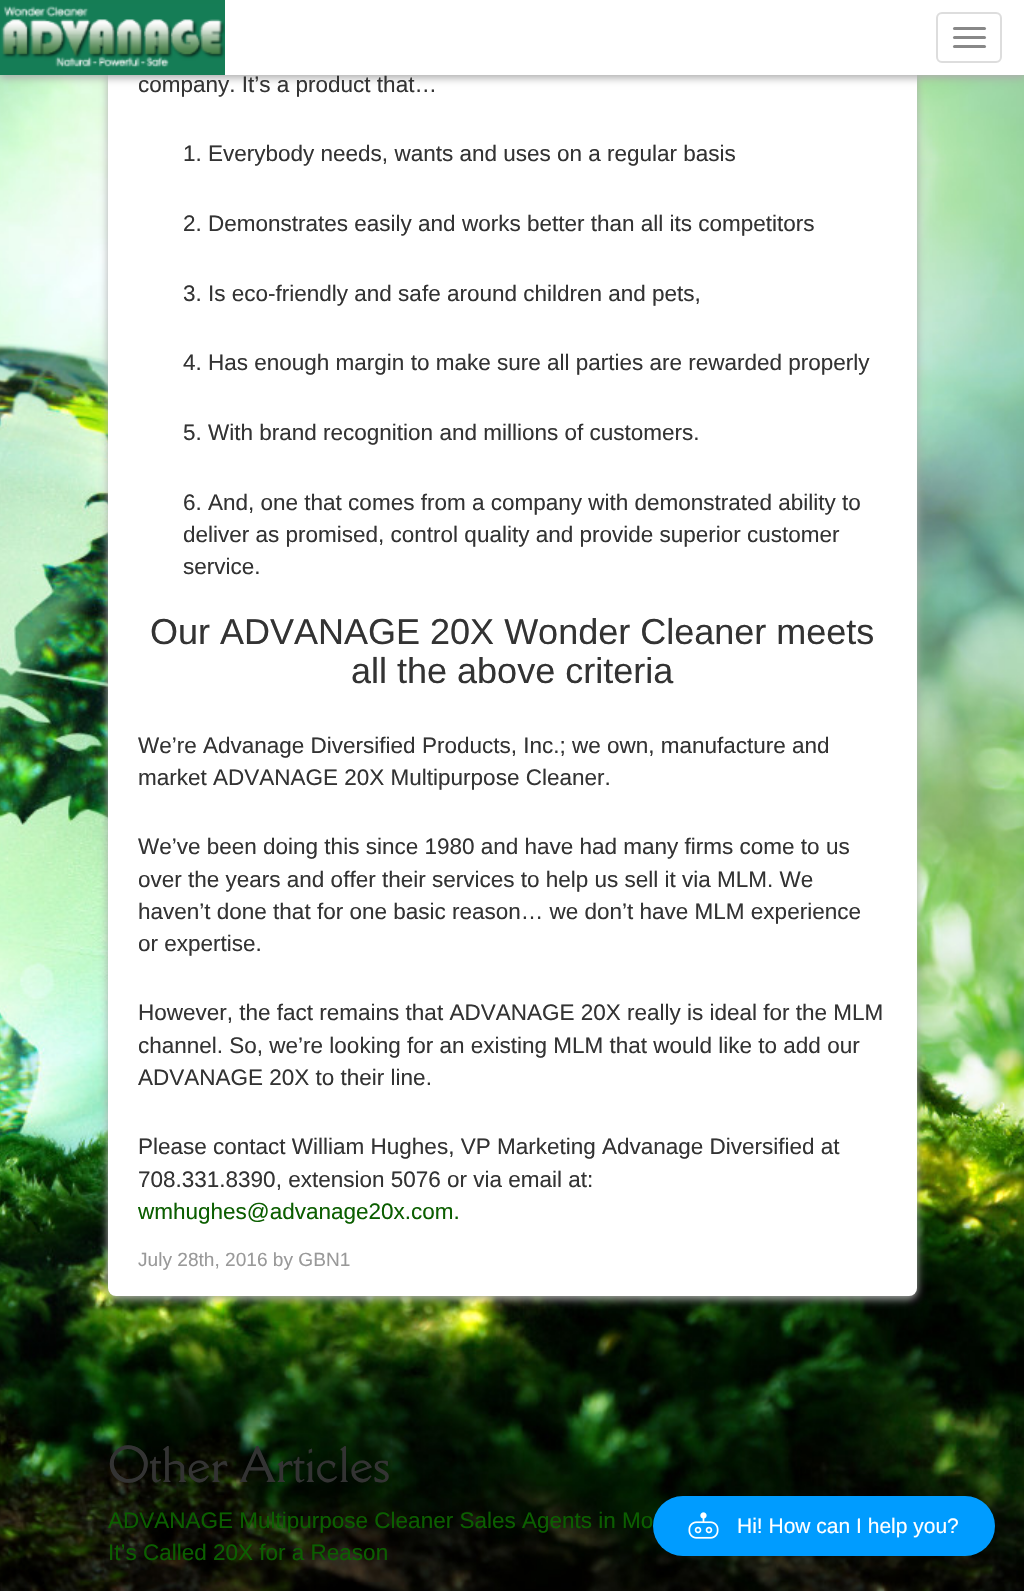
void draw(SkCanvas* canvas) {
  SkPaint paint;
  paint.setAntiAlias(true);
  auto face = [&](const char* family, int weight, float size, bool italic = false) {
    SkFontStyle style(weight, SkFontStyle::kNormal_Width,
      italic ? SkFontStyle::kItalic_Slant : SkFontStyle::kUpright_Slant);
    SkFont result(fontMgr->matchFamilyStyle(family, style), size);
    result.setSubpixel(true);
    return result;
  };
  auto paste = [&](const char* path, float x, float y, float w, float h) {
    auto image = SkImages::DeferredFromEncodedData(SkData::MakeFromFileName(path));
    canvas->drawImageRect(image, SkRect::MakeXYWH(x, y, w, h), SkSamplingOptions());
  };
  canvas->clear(0xffffffff);
  paste("img/1.png", 0, 75, 1024, 1516);
  paint.setColor(0xffadadad);
  paint.setMaskFilter(SkMaskFilter::MakeBlur(kNormal_SkBlurStyle, 4));
  canvas->drawRoundRect(SkRect::MakeXYWH(108, -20, 809, 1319), 8, 8, paint);
  paint.setMaskFilter(nullptr);
  paint.setColor(0xffffffff);
  canvas->drawRoundRect(SkRect::MakeXYWH(108, -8, 809, 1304), 8, 8, paint);
  paint.setColor(0xffadadad);
  paint.setMaskFilter(SkMaskFilter::MakeBlur(kNormal_SkBlurStyle, 4));
  canvas->drawRect(SkRect::MakeXYWH(0, 3, 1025, 75), paint);
  paint.setMaskFilter(nullptr);
  paint.setColor(0xffffffff);
  canvas->drawRect(SkRect::MakeXYWH(225, 0, 799, 75), paint);
  paste("img/2.png", 0, 0, 225, 75);
  paint.setStroke(true);
  paint.setStrokeWidth(2);
  paint.setColor(0xffdddddd);
  canvas->drawRoundRect(SkRect::MakeXYWH(937, 13, 64, 49), 5, 5, paint);
  paint.setStroke(false);
  paint.setColor(0xff888888);
  canvas->drawRoundRect(SkRect::MakeXYWH(953, 27, 33, 3), 1.5f, 1.5f, paint);
  canvas->drawRoundRect(SkRect::MakeXYWH(953, 36, 33, 3), 1.5f, 1.5f, paint);
  canvas->drawRoundRect(SkRect::MakeXYWH(953, 45, 33, 3), 1.5f, 1.5f, paint);
  paint.setColor(0xff009cff);
  canvas->drawRoundRect(SkRect::MakeXYWH(653, 1496, 342, 60), 30, 30, paint);
  paste("img/3.png", 688, 1512, 31, 27);
  auto f0 = face("Liberation Sans", 400, 22.5f);
  paint.setColor(0xff333333);
  {
    const struct { const char* s; float x, y; } items[] = {
      {"company. It’s a product that…", 138, 92},
      {"1. Everybody needs, wants and uses on a regular basis", 183, 161},
      {"2. Demonstrates easily and works better than all its competitors", 183, 231},
      {"3. Is eco-friendly and safe around children and pets,", 183, 301},
      {"4. Has enough margin to make sure all parties are rewarded properly", 183, 370},
      {"5. With brand recognition and millions of customers.", 183, 440},
      {"6. And, one that comes from a company with demonstrated ability to", 183, 510},
      {"deliver as promised, control quality and provide superior customer", 183, 542},
      {"service.", 183, 574},
    };
    for (auto [s, x, y] : items) {
      canvas->drawString(s, x, y, f0, paint);
    }
  }
  auto f1 = face("Liberation Sans", 400, 36);
  canvas->drawString("Our ADVANAGE 20X Wonder Cleaner meets", 150, 644, f1, paint);
  canvas->drawString("all the above criteria", 351, 683, f1, paint);
  {
    const struct { const char* s; float x, y; } items[] = {
      {"We’re Advanage Diversified Products, Inc.; we own, manufacture and", 138, 753},
      {"market ADVANAGE 20X Multipurpose Cleaner.", 138, 785},
      {"We’ve been doing this since 1980 and have had many firms come to us", 138, 854},
      {"over the years and offer their services to help us sell it via MLM. We", 138, 887},
      {"haven’t done that for one basic reason… we don’t have MLM experience", 138, 919},
      {"or expertise.", 138, 951},
      {"However, the fact remains that ADVANAGE 20X really is ideal for the MLM", 138, 1020},
      {"channel. So, we’re looking for an existing MLM that would like to add our", 138, 1053},
      {"ADVANAGE 20X to their line.", 138, 1085},
      {"Please contact William Hughes, VP Marketing Advanage Diversified at", 138, 1154},
      {"708.331.8390, extension 5076 or via email at:", 138, 1187},
    };
    for (auto [s, x, y] : items) {
      canvas->drawString(s, x, y, f0, paint);
    }
  }
  paint.setColor(0xff0b5e00);
  canvas->drawString("wmhughes@advanage20x.com.", 138, 1219, f0, paint);
  auto f2 = face("Liberation Sans", 400, 19.1f);
  paint.setColor(0xff999999);
  canvas->drawString("July 28th, 2016 by GBN1", 138, 1266, f2, paint);
  auto f3 = face("Della Respira", 400, 45);
  paint.setColor(0xff333333);
  canvas->drawString("Other Articles", 108, 1482, f3, paint);
  paint.setColor(0xff0b5e00);
  canvas->drawString("ADVANAGE Multipurpose Cleaner Sales Agents in Mo", 108, 1528, f0, paint);
  canvas->drawString("It’s Called 20X for a Reason", 108, 1560, f0, paint);
  auto f4 = face("Liberation Sans", 400, 21);
  paint.setColor(0xffffffff);
  canvas->drawString("Hi! How can I help you?", 737, 1533, f4, paint);
}
